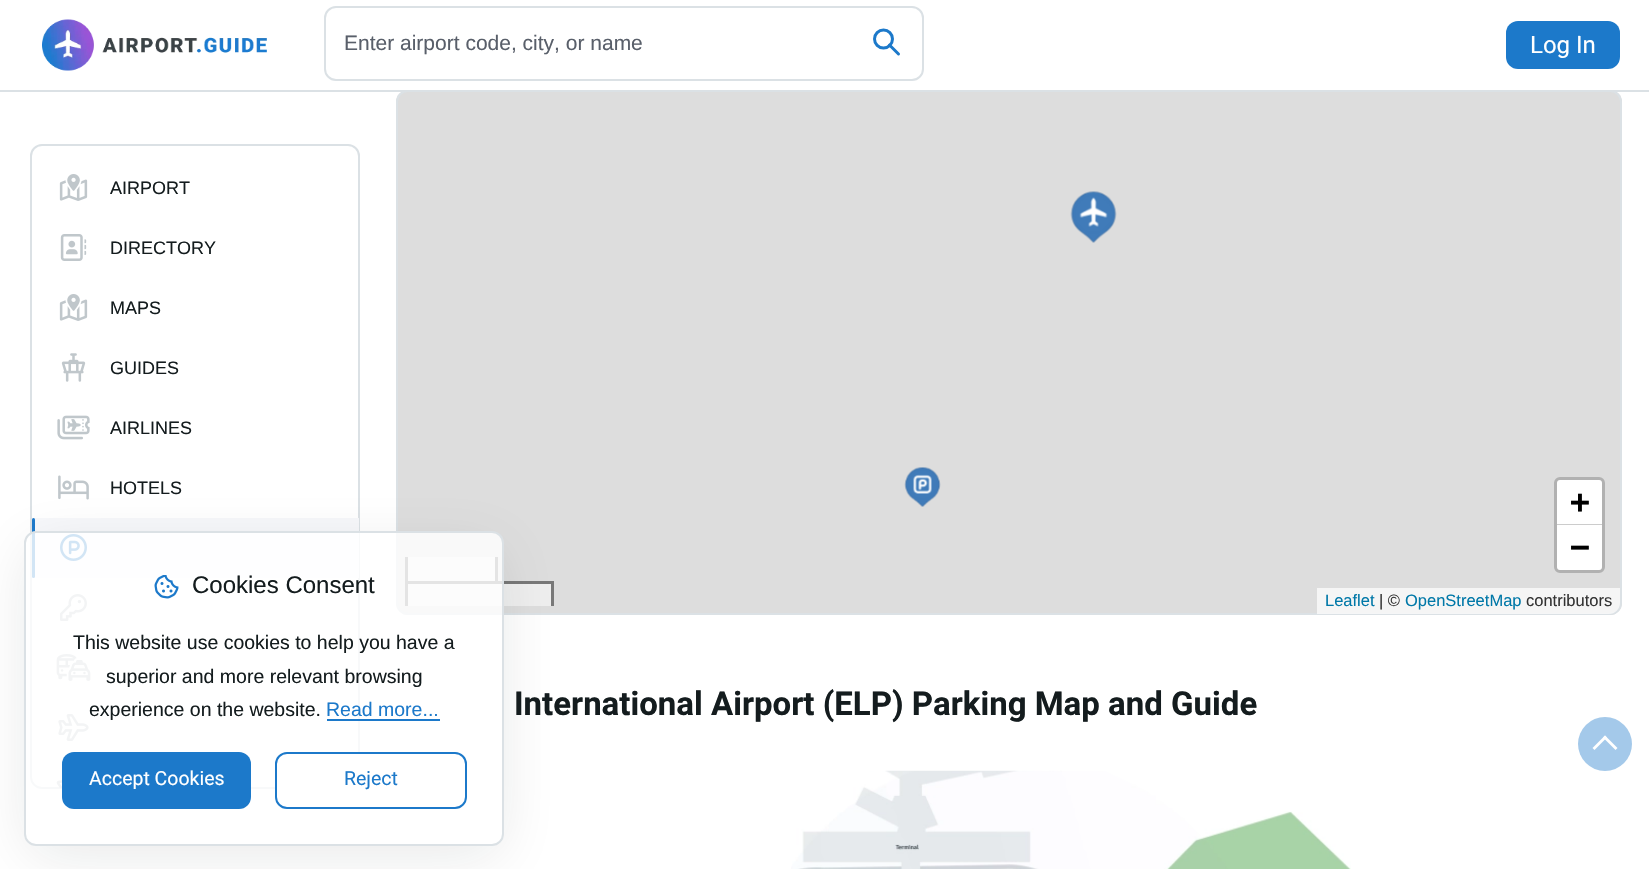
void draw(SkCanvas* canvas) {
  SkPaint paint;
  paint.setAntiAlias(true);
  auto face = [&](const char* family, int weight, float size, bool italic = false) {
    SkFontStyle style(weight, SkFontStyle::kNormal_Width,
      italic ? SkFontStyle::kItalic_Slant : SkFontStyle::kUpright_Slant);
    SkFont result(fontMgr->matchFamilyStyle(family, style), size);
    result.setSubpixel(true);
    return result;
  };
  auto paste = [&](const char* path, float x, float y, float w, float h) {
    auto image = SkImages::DeferredFromEncodedData(SkData::MakeFromFileName(path));
    canvas->drawImageRect(image, SkRect::MakeXYWH(x, y, w, h), SkSamplingOptions());
  };
  auto shape = [&](const char* data, bool evenOdd = false) {
    SkPath result = *SkParsePath::FromSVGString(data);
    if (evenOdd) result.setFillType(SkPathFillType::kEvenOdd);
    return result;
  };
  canvas->clear(0xffffffff);
  paint.setColor(0xffdddddd);
  canvas->drawRoundRect(SkRect::MakeXYWH(396, 90, 1226, 525), 12, 12, paint);
  paint.setColor(0xffeeeeee);
  canvas->drawRect(SkRect::MakeXYWH(408, 584, 143, 22), paint);
  paint.setStroke(true);
  paint.setStrokeWidth(2);
  paint.setColor(0xffdbe1e5);
  canvas->drawRoundRect(SkRect::MakeXYWH(397, 91, 1224, 523), 11, 11, paint);
  paint.setStroke(false);
  canvas->drawRect(SkRect::MakeXYWH(0, 90, 1649, 2), paint);
  paste("img/1.png", 42, 19, 225, 52);
  paint.setStroke(true);
  canvas->drawRoundRect(SkRect::MakeXYWH(325, 7, 598, 73), 11, 11, paint);
  paint.setStrokeWidth(3);
  paint.setColor(0xff1c79ca);
  canvas->drawCircle(883.5f, 39, 9, paint);
  paint.setStrokeCap(SkPaint::kRound_Cap);
  canvas->drawPath(shape("M889.5 45L898.5 54"), paint);
  paint.setStroke(false);
  canvas->drawRoundRect(SkRect::MakeXYWH(1506, 21, 114, 48), 12, 12, paint);
  paint.setStroke(true);
  paint.setStrokeWidth(2);
  paint.setStrokeCap(SkPaint::kButt_Cap);
  paint.setColor(0xffdbe1e5);
  canvas->drawRoundRect(SkRect::MakeXYWH(31, 145, 328, 643), 11, 11, paint);
  paste("img/2.png", 59, 174, 29, 27);
  paste("img/3.png", 60, 234, 27, 27);
  paste("img/2.png", 59, 294, 29, 27);
  paste("img/4.png", 61, 353, 25, 29);
  paste("img/5.png", 57, 415, 33, 25);
  paste("img/6.png", 58, 475, 31, 25);
  paint.setStroke(false);
  paint.setColor(0xfff7f8fb);
  canvas->drawRect(SkRect::MakeXYWH(32, 518, 327, 60), paint);
  paint.setColor(0xff1c79ca);
  canvas->drawRoundRect(SkRect::MakeXYWH(32, 518, 3, 60), 1.5f, 1.5f, paint);
  paste("img/7.png", 60, 534, 27, 27);
  paste("img/8.png", 60, 594, 27, 27);
  paste("img/9.png", 56, 654, 35, 27);
  paste("img/10.png", 58, 714, 31, 27);
  paste("img/11.png", 56, 780, 6, 8);
  paste("img/12.png", 1070, 191, 47, 52);
  paste("img/13.png", 904, 467, 37, 40);
  {
    const struct { float x, y, w, h; SkColor color; } items[] = {
      {408, 557, 87, 24, 0xffeeeeee},
      {495, 557, 3, 27, 0xff777777},
      {405, 557, 3, 27, 0xff777777},
      {405, 581, 149, 3, 0xff777777},
      {551, 581, 3, 25, 0xff777777},
      {405, 581, 3, 25, 0xff777777},
    };
    for (auto [x, y, w, h, color] : items) {
      paint.setColor(color);
      canvas->drawRect(SkRect::MakeXYWH(x, y, w, h), paint);
    }
  }
  paint.setStroke(true);
  paint.setStrokeWidth(3);
  paint.setColor(0xffb1b1b1);
  canvas->drawRoundRect(SkRect::MakeXYWH(1555.5f, 478.5f, 48, 93), 4.5f, 4.5f, paint);
  paint.setStroke(false);
  paint.setColor(0xffffffff);
  canvas->drawPath(shape("M1560 480H1599C1600.5 480 1602 481.5 1602 483V525H1557V483C1557 481.5 1558.5 480 1560 480Z"), paint);
  paint.setColor(0xffcccccc);
  canvas->drawRect(SkRect::MakeXYWH(1557, 524, 45, 1), paint);
  paint.setColor(0xffffffff);
  canvas->drawPath(shape("M1557 525H1602V567C1602 568.5 1600.5 570 1599 570H1560C1558.5 570 1557 568.5 1557 567Z"), paint);
  paint.setColor(0xb3ffffff);
  canvas->drawPath(shape("M1317 588H1620V603C1620 609 1615 614 1609 614H1317Z"), paint);
  paste("img/14.png", 791, 770, 560, 99);
  canvas->save();
  canvas->clipPath(shape("M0 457H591V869H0ZM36 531H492C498.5 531 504 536.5 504 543V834C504 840.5 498.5 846 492 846H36C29.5 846 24 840.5 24 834V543C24 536.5 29.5 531 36 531Z", true), true);
  paint.setColor(0x1a141c1e);
  paint.setMaskFilter(SkMaskFilter::MakeBlur(kNormal_SkBlurStyle, 30));
  canvas->drawRoundRect(SkRect::MakeXYWH(29, 548, 471, 306), 8, 8, paint);
  paint.setMaskFilter(nullptr);
  canvas->restore();
  paint.setColor(0xccffffff);
  canvas->drawRoundRect(SkRect::MakeXYWH(25, 532, 478, 313), 11, 11, paint);
  paint.setStroke(true);
  paint.setStrokeWidth(2);
  paint.setColor(0xffdbe1e5);
  canvas->drawRoundRect(SkRect::MakeXYWH(25, 532, 478, 313), 11, 11, paint);
  paste("img/15.png", 154, 575, 25, 24);
  paint.setStroke(false);
  paint.setColor(0xff1c79ca);
  canvas->drawRect(SkRect::MakeXYWH(327, 719, 113, 2), paint);
  canvas->drawRoundRect(SkRect::MakeXYWH(62, 752, 189, 57), 12, 12, paint);
  paint.setColor(0xffffffff);
  canvas->drawRoundRect(SkRect::MakeXYWH(276, 753, 190, 55), 11, 11, paint);
  paint.setStroke(true);
  paint.setColor(0xff1c79ca);
  canvas->drawRoundRect(SkRect::MakeXYWH(276, 753, 190, 55), 11, 11, paint);
  paint.setStroke(false);
  paint.setColor(0xffa4c9ea);
  canvas->drawCircle(1605, 744, 27, paint);
  paint.setColor(0xffffffff);
  canvas->drawPath(shape("M1592.5 748L1605 735.5L1607 737.5L1594.5 750Z"), paint);
  canvas->drawPath(shape("M1603 737.5L1605 735.5L1617.5 748L1615.5 750Z"), paint);
  auto f0 = face("Liberation Sans", 400, 21);
  paint.setColor(0xff595f6a);
  canvas->drawString("Enter airport code, city, or name", 344, 50, f0, paint);
  auto f1 = face("Roboto", 400, 24);
  paint.setColor(0xffffffff);
  canvas->drawString("Log In", 1530, 53, f1, paint);
  auto f2 = face("Liberation Sans", 400, 18);
  paint.setColor(0xff141c1e);
  {
    const struct { const char* s; float x, y; } items[] = {
      {"AIRPORT", 110, 194},
      {"DIRECTORY", 110, 254},
      {"MAPS", 110, 314},
      {"GUIDES", 110, 374},
      {"AIRLINES", 110, 434},
      {"HOTELS", 110, 494},
    };
    for (auto [s, x, y] : items) {
      canvas->drawString(s, x, y, f2, paint);
    }
  }
  auto f3 = face("DejaVu Sans Mono", 700, 33);
  paint.setColor(0xff000000);
  canvas->drawString("+", 1570, 513, f3, paint);
  canvas->drawString("−", 1570, 558, f3, paint);
  auto f4 = face("Liberation Sans", 400, 16.5f);
  paint.setColor(0xff0078a8);
  canvas->drawString("Leaflet", 1325, 606, f4, paint);
  paint.setColor(0xff333333);
  canvas->drawString("| ©", 1379, 606, f4, paint);
  paint.setColor(0xff0078a8);
  canvas->drawString("OpenStreetMap", 1405, 606, f4, paint);
  paint.setColor(0xff333333);
  canvas->drawString("contributors", 1526, 606, f4, paint);
  auto f5 = face("Roboto", 700, 33);
  paint.setColor(0xff141c1e);
  canvas->drawString("International Airport (ELP) Parking Map and Guide", 514, 715, f5, paint);
  auto f6 = face("Liberation Sans", 400, 24);
  canvas->drawString("Cookies Consent", 192, 593, f6, paint);
  auto f7 = face("Liberation Sans", 400, 19.5f);
  {
    const struct { const char* s; float x, y; } items[] = {
      {"This website use cookies to help you have a", 73, 649},
      {"superior and more relevant browsing", 106, 683},
      {"experience on the website.", 89, 716},
    };
    for (auto [s, x, y] : items) {
      canvas->drawString(s, x, y, f7, paint);
    }
  }
  paint.setColor(0xff1c79ca);
  canvas->drawString("Read more...", 326, 716, f7, paint);
  auto f8 = face("Roboto", 400, 19.5f);
  paint.setColor(0xffffffff);
  canvas->drawString("Accept Cookies", 89, 785, f8, paint);
  paint.setColor(0xff1c79ca);
  canvas->drawString("Reject", 344, 785, f8, paint);
}
